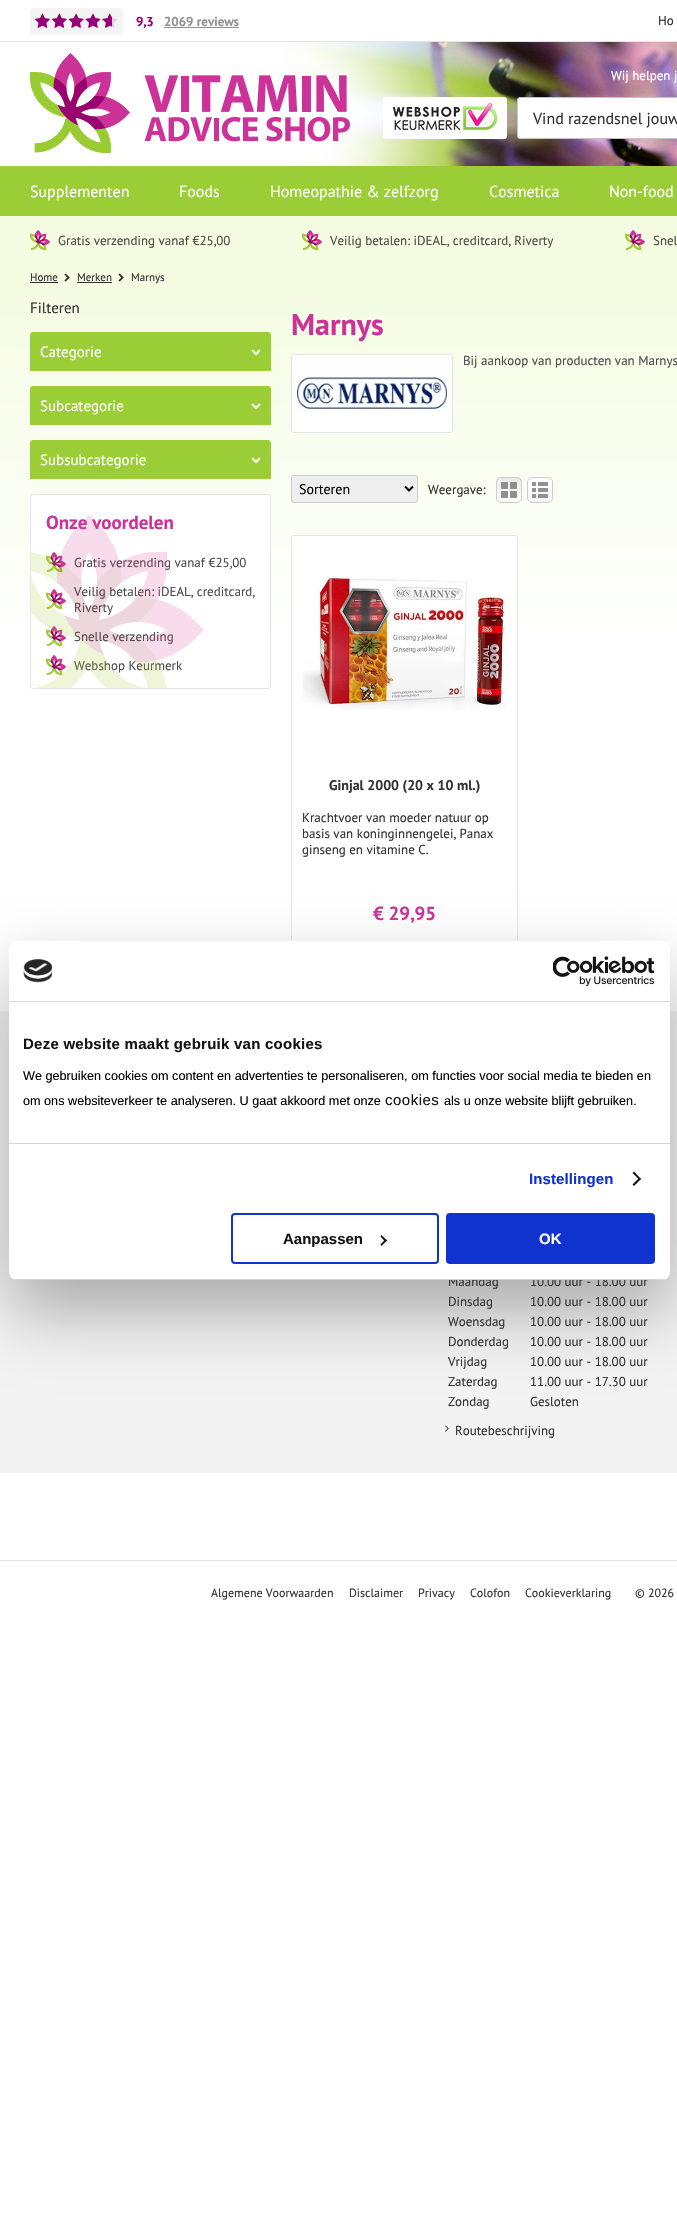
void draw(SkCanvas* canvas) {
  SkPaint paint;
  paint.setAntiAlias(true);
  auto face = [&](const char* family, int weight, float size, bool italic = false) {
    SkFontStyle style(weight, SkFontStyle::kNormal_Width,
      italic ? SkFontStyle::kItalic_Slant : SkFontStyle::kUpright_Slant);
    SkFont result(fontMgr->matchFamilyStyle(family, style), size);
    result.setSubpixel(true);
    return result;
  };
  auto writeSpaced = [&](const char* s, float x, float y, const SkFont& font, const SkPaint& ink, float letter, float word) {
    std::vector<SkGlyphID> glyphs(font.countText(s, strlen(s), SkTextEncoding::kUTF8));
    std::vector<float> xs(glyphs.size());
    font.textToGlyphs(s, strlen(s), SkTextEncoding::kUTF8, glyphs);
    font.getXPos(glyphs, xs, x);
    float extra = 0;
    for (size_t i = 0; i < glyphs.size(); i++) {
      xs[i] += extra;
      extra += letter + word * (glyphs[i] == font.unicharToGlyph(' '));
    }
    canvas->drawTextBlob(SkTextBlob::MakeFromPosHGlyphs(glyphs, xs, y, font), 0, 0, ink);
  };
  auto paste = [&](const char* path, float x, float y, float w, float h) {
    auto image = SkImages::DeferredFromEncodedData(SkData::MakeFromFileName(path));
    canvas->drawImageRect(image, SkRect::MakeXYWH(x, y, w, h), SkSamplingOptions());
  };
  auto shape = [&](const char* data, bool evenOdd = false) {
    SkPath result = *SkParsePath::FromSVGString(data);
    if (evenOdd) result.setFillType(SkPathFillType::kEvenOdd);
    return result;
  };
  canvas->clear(0xffffffff);
  paint.setColor(0xffe6e6e6);
  canvas->drawRect(SkRect::MakeXYWH(0, 41, 677, 1), paint);
  paint.setColor(0xfff4f4f4);
  canvas->drawRoundRect(SkRect::MakeXYWH(30, 8, 93, 26), 3, 3, paint);
  paste("img/1.png", 35, 13, 82, 15);
  paste("img/2.png", 35, 13, 77, 15);
  paint.setColor(0xff909090);
  canvas->drawRect(SkRect::MakeXYWH(164, 27, 75, 1), paint);
  paste("img/3.png", 283, 42, 394, 124);
  paste("img/4.png", 30, 53, 320, 100);
  paint.setColor(0xffffffff);
  canvas->drawRoundRect(SkRect::MakeXYWH(383, 97, 124, 42), 3, 3, paint);
  paste("img/5.png", 393, 103, 104, 27);
  canvas->drawRoundRect(SkRect::MakeXYWH(517.5f, 97.5f, 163, 41), 2.5f, 2.5f, paint);
  paint.setStroke(true);
  paint.setStrokeWidth(1);
  paint.setColor(0xffc4c4c4);
  canvas->drawRoundRect(SkRect::MakeXYWH(517.5f, 97.5f, 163, 41), 2.5f, 2.5f, paint);
  paint.setStroke(false);
  paint.setColor(0xff9bcd36);
  canvas->drawRect(SkRect::MakeXYWH(0, 166, 677, 50), paint);
  paint.setColor(0xfff4fce1);
  canvas->drawRect(SkRect::MakeXYWH(0, 216, 677, 48), paint);
  paste("img/6.png", 30, 230, 20, 20);
  paste("img/6.png", 302, 230, 20, 20);
  paste("img/6.png", 625, 230, 20, 20);
  {
    const SkColor colors[] = {0xfff4fce1, 0xffffffff};
    const float stops[] = {0, 1};
    const SkPoint ends[] = {{512, 262}, {512, 662}};
    paint.setShader(SkGradientShader::MakeLinear(ends, colors, stops, 2, SkTileMode::kClamp));
    paint.setAlpha(255);
  }
  canvas->drawRect(SkRect::MakeXYWH(0, 264, 677, 365), paint);
  paint.setShader(nullptr);
  paint.setColor(0xff323232);
  canvas->drawRect(SkRect::MakeXYWH(30, 282, 28, 1), paint);
  paste("img/7.png", 64, 273, 6, 9);
  canvas->drawRect(SkRect::MakeXYWH(77, 282, 35, 1), paint);
  paste("img/7.png", 118, 273, 6, 9);
  paint.setColor(0xff9bcd36);
  canvas->drawPath(shape("M33 332H268C269.5 332 271 333.5 271 335V371H30V335C30 333.5 31.5 332 33 332Z"), paint);
  paste("img/8.png", 251, 349, 10, 7);
  canvas->drawPath(shape("M33 386H268C269.5 386 271 387.5 271 389V425H30V389C30 387.5 31.5 386 33 386Z"), paint);
  paste("img/8.png", 251, 403, 10, 7);
  canvas->drawPath(shape("M33 440H268C269.5 440 271 441.5 271 443V479H30V443C30 441.5 31.5 440 33 440Z"), paint);
  paste("img/8.png", 251, 457, 10, 7);
  paint.setColor(0xffffffff);
  canvas->drawRoundRect(SkRect::MakeXYWH(30.5f, 494.5f, 240, 194), 2.5f, 2.5f, paint);
  paint.setStroke(true);
  paint.setColor(0xffe6e6e6);
  canvas->drawRoundRect(SkRect::MakeXYWH(30.5f, 494.5f, 240, 194), 2.5f, 2.5f, paint);
  paste("img/10.png", 46, 552, 20, 20);
  paste("img/10.png", 46, 589, 20, 20);
  paste("img/10.png", 46, 626, 20, 20);
  paste("img/10.png", 46, 655, 20, 20);
  paint.setStroke(false);
  paint.setColor(0xffffffff);
  canvas->drawRoundRect(SkRect::MakeXYWH(291.5f, 354.5f, 161, 78), 2.5f, 2.5f, paint);
  paint.setStroke(true);
  paint.setColor(0xffe6e6e6);
  canvas->drawRoundRect(SkRect::MakeXYWH(291.5f, 354.5f, 161, 78), 2.5f, 2.5f, paint);
  paste("img/11.png", 297, 373, 150, 41);
  paint.setStroke(false);
  paint.setColor(0xffefefef);
  canvas->drawRoundRect(SkRect::MakeXYWH(291.5f, 475.5f, 126, 27), 2.5f, 2.5f, paint);
  paint.setStroke(true);
  paint.setColor(0xffcccccc);
  canvas->drawRoundRect(SkRect::MakeXYWH(291.5f, 475.5f, 126, 27), 2.5f, 2.5f, paint);
  paint.setStrokeWidth(2);
  paint.setColor(0xff000000);
  canvas->drawPath(shape("M405 486.5L409 490.5L413 486.5"), paint);
  canvas->save();
  canvas->clipPath(shape("M501 477H517C520 477 522 479 522 482V498C522 501 520 503 517 503H501C498 503 496 501 496 498V482C496 479 498 477 501 477Z"), true);
  paint.setStroke(false);
  {
    const SkColor colors[] = {0xffede9ea, 0xfffffffe};
    const float stops[] = {0, 1};
    const SkPoint ends[] = {{509, 478}, {509, 502}};
    paint.setShader(SkGradientShader::MakeLinear(ends, colors, stops, 2, SkTileMode::kClamp));
    paint.setAlpha(255);
  }
  canvas->drawRect(SkRect::MakeXYWH(496, 478, 26, 24), paint);
  canvas->restore();
  paint.setStroke(true);
  paint.setStrokeWidth(1);
  paint.setShader(nullptr);
  paint.setColor(0xffcccccc);
  canvas->drawRoundRect(SkRect::MakeXYWH(496.5f, 477.5f, 25, 25), 4.5f, 4.5f, paint);
  paste("img/12.png", 501, 482, 16, 16);
  canvas->save();
  canvas->clipPath(shape("M532 477H548C551 477 553 479 553 482V498C553 501 551 503 548 503H532C529 503 527 501 527 498V482C527 479 529 477 532 477Z"), true);
  paint.setStroke(false);
  {
    const SkColor colors[] = {0xfffffffe, 0xfff5f5f5};
    const float stops[] = {0, 1};
    const SkPoint ends[] = {{540, 478}, {540, 502}};
    paint.setShader(SkGradientShader::MakeLinear(ends, colors, stops, 2, SkTileMode::kClamp));
    paint.setAlpha(255);
  }
  canvas->drawRect(SkRect::MakeXYWH(527, 478, 26, 24), paint);
  canvas->restore();
  paint.setStroke(true);
  paint.setShader(nullptr);
  paint.setColor(0xffcccccc);
  canvas->drawRoundRect(SkRect::MakeXYWH(527.5f, 477.5f, 25, 25), 4.5f, 4.5f, paint);
  paste("img/13.png", 532, 482, 16, 16);
  paint.setStroke(false);
  paint.setColor(0xffffffff);
  canvas->drawRoundRect(SkRect::MakeXYWH(291.5f, 535.5f, 226, 446), 2.5f, 2.5f, paint);
  paint.setStroke(true);
  paint.setColor(0xffe6e6e6);
  canvas->drawRoundRect(SkRect::MakeXYWH(291.5f, 535.5f, 226, 446), 2.5f, 2.5f, paint);
  paste("img/14.png", 303, 576, 203, 134);
  paint.setStroke(false);
  paint.setColor(0xfff3f3f3);
  canvas->drawRect(SkRect::MakeXYWH(0, 1011, 677, 462), paint);
  paste("img/15.png", 445, 1425, 4, 7);
  paint.setColor(0xffe6e6e6);
  canvas->drawRect(SkRect::MakeXYWH(0, 1560, 677, 1), paint);
  paint.setColor(0x4d000000);
  paint.setMaskFilter(SkMaskFilter::MakeBlur(kNormal_SkBlurStyle, 34));
  canvas->drawRoundRect(SkRect::MakeXYWH(9, 973, 661, 339), 8, 8, paint);
  paint.setMaskFilter(nullptr);
  auto f0 = face("PT Sans", 700, 13);
  paint.setColor(0xff910074);
  canvas->drawString("9,3", 136, 26, f0, paint);
  paint.setColor(0xff909090);
  canvas->drawString("2069 reviews", 164, 26, f0, paint);
  auto f1 = face("PT Sans", 400, 13);
  paint.setColor(0xff323232);
  canvas->drawString("Ho", 658, 25, f1, paint);
  paint.setColor(0xffffffff);
  canvas->drawString("Wij helpen j", 611, 80, f1, paint);
  auto f2 = face("PT Sans", 400, 16);
  paint.setColor(0xff323232);
  canvas->drawString("Vind razendsnel jouw", 533, 124, f2, paint);
  paint.setColor(0xffffffff);
  {
    const struct { const char* s; float x, y; } items[] = {
      {"Supplementen", 30, 197},
      {"Foods", 179, 197},
      {"Homeopathie & zelfzorg", 270, 197},
      {"Cosmetica", 489, 197},
      {"Non-food", 609, 197},
    };
    for (auto [s, x, y] : items) {
      canvas->drawString(s, x, y, f2, paint);
    }
  }
  paint.setColor(0xff4c4c4c);
  {
    const struct { const char* s; float x, y; } items[] = {
      {"Gratis verzending vanaf €25,00", 58, 245},
      {"Veilig betalen: iDEAL, creditcard, Riverty", 330, 245},
      {"Snel", 653, 245},
    };
    for (auto [s, x, y] : items) {
      canvas->drawString(s, x, y, f1, paint);
    }
  }
  auto f3 = face("PT Sans", 400, 11);
  paint.setColor(0xff323232);
  {
    const struct { const char* s; float x, y; } items[] = {
      {"Home", 30, 281},
      {"Merken", 77, 281},
      {"Marnys", 131, 281},
    };
    for (auto [s, x, y] : items) {
      canvas->drawString(s, x, y, f3, paint);
    }
  }
  auto f4 = face("PT Sans", 400, 15);
  canvas->drawString("Filteren", 30, 313, f4, paint);
  paint.setColor(0xffffffff);
  {
    const struct { const char* s; float x, y; } items[] = {
      {"Categorie", 40, 357},
      {"Subcategorie", 40, 411},
      {"Subsubcategorie", 40, 465},
    };
    for (auto [s, x, y] : items) {
      canvas->drawString(s, x, y, f4, paint);
    }
  }
  auto f5 = face("PT Sans", 700, 19);
  paint.setColor(0xffcc3399);
  canvas->drawString("Onze voordelen", 46, 529, f5, paint);
  paint.setColor(0xff4c4c4c);
  {
    const struct { const char* s; float x, y; } items[] = {
      {"Gratis verzending vanaf €25,00", 74, 567},
      {"Veilig betalen: iDEAL, creditcard,", 74, 596},
      {"Riverty", 74, 612},
      {"Snelle verzending", 74, 641},
      {"Webshop Keurmerk", 74, 670},
    };
    for (auto [s, x, y] : items) {
      canvas->drawString(s, x, y, f1, paint);
    }
  }
  paste("img/9.png", 31, 515, 173, 173);
  auto f6 = face("PT Sans", 700, 30);
  paint.setColor(0xffcc3399);
  canvas->drawString("Marnys", 291, 335, f6, paint);
  paint.setColor(0xff4c4c4c);
  canvas->drawString("Bij aankoop van producten van Marnys", 463, 365, f1, paint);
  auto f7 = face("PT Sans", 400, 14);
  paint.setColor(0xff000000);
  canvas->drawString("Sorteren", 299, 494, f7, paint);
  paint.setColor(0xff323232);
  canvas->drawString("Weergave:", 428, 494, f1, paint);
  auto f8 = face("PT Sans", 700, 14);
  canvas->drawString("Ginjal 2000 (20 x 10 ml.)", 329, 790, f8, paint);
  {
    const struct { const char* s; float x, y; } items[] = {
      {"Krachtvoer van moeder natuur op", 302, 822},
      {"basis van koninginnengelei, Panax", 302, 838},
      {"ginseng en vitamine C.", 302, 854},
    };
    for (auto [s, x, y] : items) {
      canvas->drawString(s, x, y, f1, paint);
    }
  }
  paint.setColor(0xffcc3399);
  canvas->drawString("€ 29,95", 373, 920, f5, paint);
  paint.setColor(0xff323232);
  {
    const struct { const char* s; float x, y; } items[] = {
      {"Maandag", 448, 1286},
      {"10.00 uur - 18.00 uur", 530, 1286},
      {"Dinsdag", 448, 1306},
      {"10.00 uur - 18.00 uur", 530, 1306},
      {"Woensdag", 448, 1326},
      {"10.00 uur - 18.00 uur", 530, 1326},
      {"Donderdag", 448, 1346},
      {"10.00 uur - 18.00 uur", 530, 1346},
      {"Vrijdag", 448, 1366},
      {"10.00 uur - 18.00 uur", 530, 1366},
      {"Zaterdag", 448, 1386},
      {"11.00 uur - 17.30 uur", 530, 1386},
      {"Zondag", 448, 1406},
      {"Gesloten", 530, 1406},
      {"Routebeschrijving", 455, 1435},
    };
    for (auto [s, x, y] : items) {
      canvas->drawString(s, x, y, f1, paint);
    }
  }
  auto f9 = face("PT Sans", 400, 12);
  {
    const struct { const char* s; float x, y; } items[] = {
      {"Algemene Voorwaarden", 211, 1597},
      {"Disclaimer", 349, 1597},
      {"Privacy", 418, 1597},
      {"Colofon", 470, 1597},
      {"Cookieverklaring", 525, 1597},
      {"© 2026", 635, 1597},
    };
    for (auto [s, x, y] : items) {
      canvas->drawString(s, x, y, f9, paint);
    }
  }
  paint.setColor(0xffffffff);
  canvas->drawRoundRect(SkRect::MakeXYWH(9, 941, 661, 339), 8, 8, paint);
  paint.setColor(0xffd6d6d6);
  canvas->drawRect(SkRect::MakeXYWH(9, 1001, 661, 1), paint);
  paste("img/16.png", 23, 959, 30, 24);
  paste("img/17.png", 553, 956, 102, 30);
  canvas->drawRect(SkRect::MakeXYWH(9, 1143, 661, 1), paint);
  auto f10 = face("Liberation Sans", 700, 15);
  paint.setColor(0xff141414);
  writeSpaced("Deze website maakt gebruik van cookies", 23, 1049, f10, paint, 0.25f, 0);
  auto f11 = face("Liberation Sans", 400, 12.65f);
  paint.setColor(0xff000000);
  canvas->drawString("We gebruiken cookies om content en advertenties te personaliseren, om functies voor social media te bieden en", 23, 1080, f11, paint);
  canvas->drawString("om ons websiteverkeer te analyseren. U gaat akkoord met onze", 23, 1105, f11, paint);
  auto f12 = face("Liberation Sans", 400, 15);
  paint.setColor(0xff141414);
  writeSpaced("cookies", 385, 1105, f12, paint, 0.5f, 0);
  paint.setColor(0xff000000);
  canvas->drawString("als u onze website blijft gebruiken.", 444, 1105, f11, paint);
  paint.setColor(0xff1032cf);
  writeSpaced("Instellingen", 529, 1184, f10, paint, 0.1f, 0);
  paint.setColor(0xff141414);
  canvas->drawPath(shape("M634 1171.5L641 1179L639.5 1180L632.5 1173Z"), paint);
  canvas->drawPath(shape("M639.5 1177.5L641 1179L634 1186L632.5 1184.5Z"), paint);
  canvas->save();
  canvas->clipPath(shape("M17 941H662C666.5 941 670 944.5 670 949V1272C670 1276.5 666.5 1280 662 1280H17C12.5 1280 9 1276.5 9 1272V949C9 944.5 12.5 941 17 941Z"), true);
  paint.setColor(0xffd6d6d6);
  canvas->drawRect(SkRect::MakeXYWH(9, 1279, 661, 1), paint);
  canvas->restore();
  paint.setStroke(true);
  paint.setStrokeWidth(2);
  paint.setColor(0xff1032cf);
  canvas->drawRoundRect(SkRect::MakeXYWH(232, 1214, 206, 49), 3, 3, paint);
  paint.setStroke(false);
  paint.setColor(0xff141414);
  canvas->drawString("Aanpassen", 283, 1244, f10, paint);
  canvas->drawPath(shape("M381.5 1235L387 1240.5L385.5 1242L380.5 1236.5Z"), paint);
  canvas->drawPath(shape("M385.5 1239L387 1240.5L381.5 1246L380.5 1244.5Z"), paint);
  paint.setColor(0xff1032cf);
  canvas->drawRoundRect(SkRect::MakeXYWH(447, 1214, 207, 49), 3, 3, paint);
  paint.setStroke(true);
  canvas->drawRoundRect(SkRect::MakeXYWH(447, 1214, 207, 49), 3, 3, paint);
  paint.setStroke(false);
  paint.setColor(0xffffffff);
  canvas->drawString("OK", 539, 1244, f10, paint);
}
